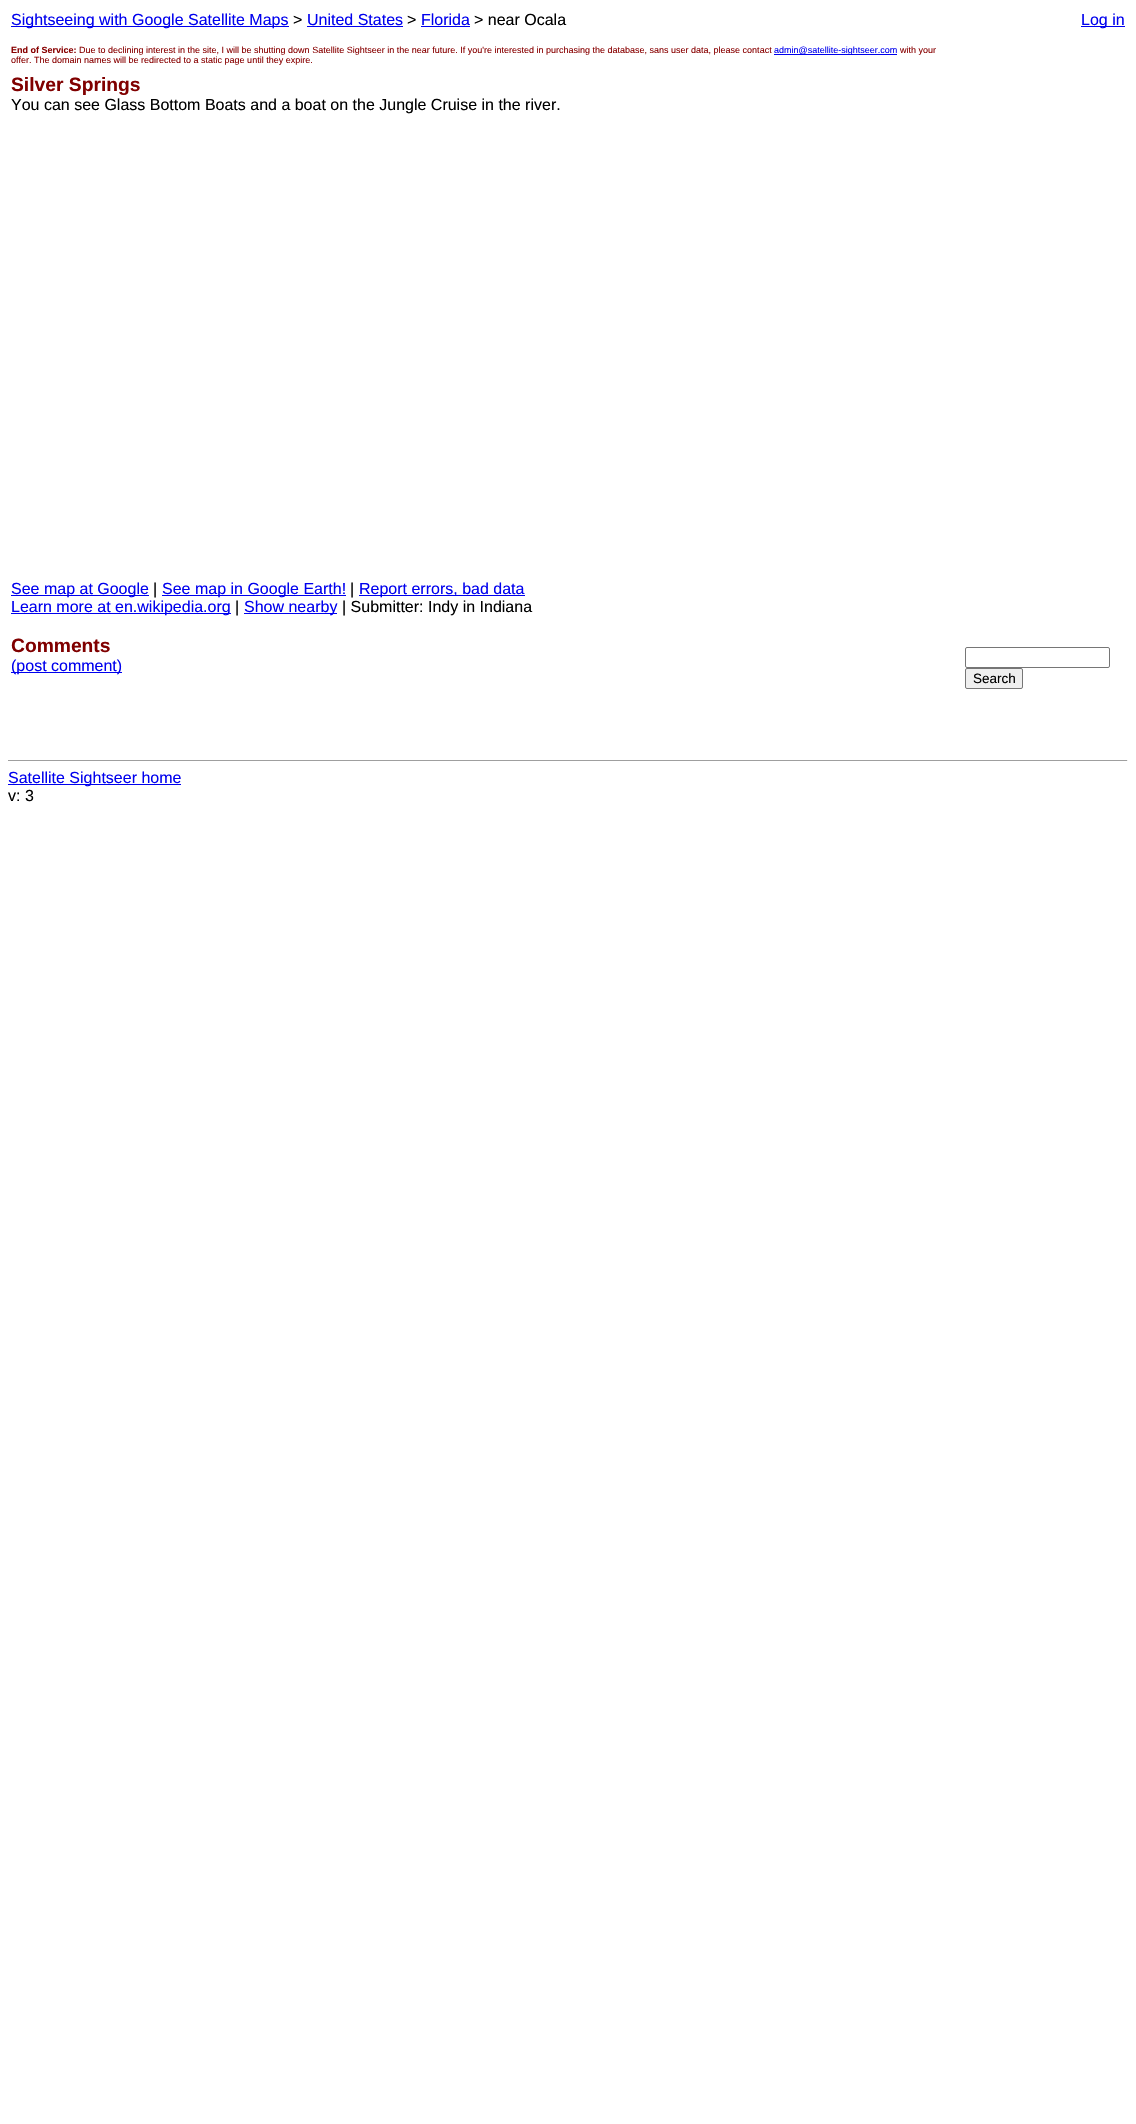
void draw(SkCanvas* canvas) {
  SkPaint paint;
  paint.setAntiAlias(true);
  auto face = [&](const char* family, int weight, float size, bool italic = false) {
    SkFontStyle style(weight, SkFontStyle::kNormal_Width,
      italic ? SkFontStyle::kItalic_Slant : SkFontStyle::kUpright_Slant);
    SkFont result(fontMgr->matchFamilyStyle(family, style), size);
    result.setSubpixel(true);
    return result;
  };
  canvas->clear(0xffffffff);
  {
    const struct { float x, y, w, h; SkColor color; } items[] = {
      {11, 26, 278, 1, 0xff0000ee},
      {307, 26, 96, 1, 0xff0000ee},
      {421, 26, 49, 1, 0xff0000ee},
      {774, 54, 123, 1, 0xff0000ee},
      {11, 595, 138, 1, 0xff0000ee},
      {162, 595, 184, 1, 0xff0000ee},
      {359, 595, 166, 1, 0xff0000ee},
      {11, 613, 220, 1, 0xff0000ee},
      {244, 613, 93, 1, 0xff0000ee},
      {11, 672, 111, 1, 0xff0000ee},
      {1081, 26, 44, 1, 0xff0000ee},
    };
    for (auto [x, y, w, h, color] : items) {
      paint.setColor(color);
      canvas->drawRect(SkRect::MakeXYWH(x, y, w, h), paint);
    }
  }
  paint.setStroke(true);
  paint.setStrokeWidth(1);
  paint.setColor(0xff767676);
  canvas->drawRoundRect(SkRect::MakeXYWH(965.5f, 647.5f, 144, 20), 1.5f, 1.5f, paint);
  paint.setStroke(false);
  paint.setColor(0xffefefef);
  canvas->drawRoundRect(SkRect::MakeXYWH(965.5f, 668.5f, 57, 20), 1.5f, 1.5f, paint);
  paint.setStroke(true);
  paint.setColor(0xff767676);
  canvas->drawRoundRect(SkRect::MakeXYWH(965.5f, 668.5f, 57, 20), 1.5f, 1.5f, paint);
  paint.setStroke(false);
  {
    const struct { float x, y, w, h; SkColor color; } items[] = {
      {8, 760, 1120, 1, 0xff9f9f9f},
      {1127, 760, 1, 1, 0xffeeeeee},
      {8, 784, 173, 1, 0xff0000ee},
    };
    for (auto [x, y, w, h, color] : items) {
      paint.setColor(color);
      canvas->drawRect(SkRect::MakeXYWH(x, y, w, h), paint);
    }
  }
  auto f0 = face("Liberation Sans", 400, 16);
  canvas->drawString("Sightseeing with Google Satellite Maps", 11, 25, f0, paint);
  paint.setColor(0xff000000);
  canvas->drawString(">", 293, 25, f0, paint);
  paint.setColor(0xff0000ee);
  canvas->drawString("United States", 307, 25, f0, paint);
  paint.setColor(0xff000000);
  canvas->drawString(">", 407, 25, f0, paint);
  paint.setColor(0xff0000ee);
  canvas->drawString("Florida", 421, 25, f0, paint);
  paint.setColor(0xff000000);
  canvas->drawString("> near Ocala", 474, 25, f0, paint);
  auto f1 = face("Liberation Sans", 700, 9);
  paint.setColor(0xff880000);
  canvas->drawString("End of Service:", 11, 53, f1, paint);
  auto f2 = face("Liberation Sans", 400, 9);
  canvas->drawString("Due to declining interest in the site, I will be shutting down Satellite Sightseer in the near future. If you're interested in purchasing the database, sans user data, please contact", 79, 53, f2, paint);
  paint.setColor(0xff0000ee);
  canvas->drawString("admin@satellite-sightseer.com", 774, 53, f2, paint);
  paint.setColor(0xff880000);
  canvas->drawString("with your", 900, 53, f2, paint);
  canvas->drawString("offer. The domain names will be redirected to a static page until they expire.", 11, 63, f2, paint);
  auto f3 = face("Liberation Sans", 700, 19.25f);
  paint.setColor(0xff800000);
  canvas->drawString("Silver Springs", 11, 91, f3, paint);
  paint.setColor(0xff000000);
  canvas->drawString("You can see Glass Bottom Boats and a boat on the Jungle Cruise in the river.", 11, 110, f0, paint);
  paint.setColor(0xff0000ee);
  canvas->drawString("See map at Google", 11, 594, f0, paint);
  paint.setColor(0xff000000);
  canvas->drawString("|", 153, 594, f0, paint);
  paint.setColor(0xff0000ee);
  canvas->drawString("See map in Google Earth!", 162, 594, f0, paint);
  paint.setColor(0xff000000);
  canvas->drawString("|", 350, 594, f0, paint);
  paint.setColor(0xff0000ee);
  canvas->drawString("Report errors, bad data", 359, 594, f0, paint);
  canvas->drawString("Learn more at en.wikipedia.org", 11, 612, f0, paint);
  paint.setColor(0xff000000);
  canvas->drawString("|", 235, 612, f0, paint);
  paint.setColor(0xff0000ee);
  canvas->drawString("Show nearby", 244, 612, f0, paint);
  paint.setColor(0xff000000);
  canvas->drawString("| Submitter: Indy in Indiana", 342, 612, f0, paint);
  paint.setColor(0xff800000);
  canvas->drawString("Comments", 11, 652, f3, paint);
  paint.setColor(0xff0000ee);
  canvas->drawString("(post comment)", 11, 671, f0, paint);
  canvas->drawString("Log in", 1081, 25, f0, paint);
  auto f4 = face("Liberation Sans", 400, 13.5f);
  paint.setColor(0xff000000);
  canvas->drawString("Search", 973, 683, f4, paint);
  paint.setColor(0xff0000ee);
  canvas->drawString("Satellite Sightseer home", 8, 783, f0, paint);
  paint.setColor(0xff000000);
  canvas->drawString("v: 3", 8, 801, f0, paint);
}
